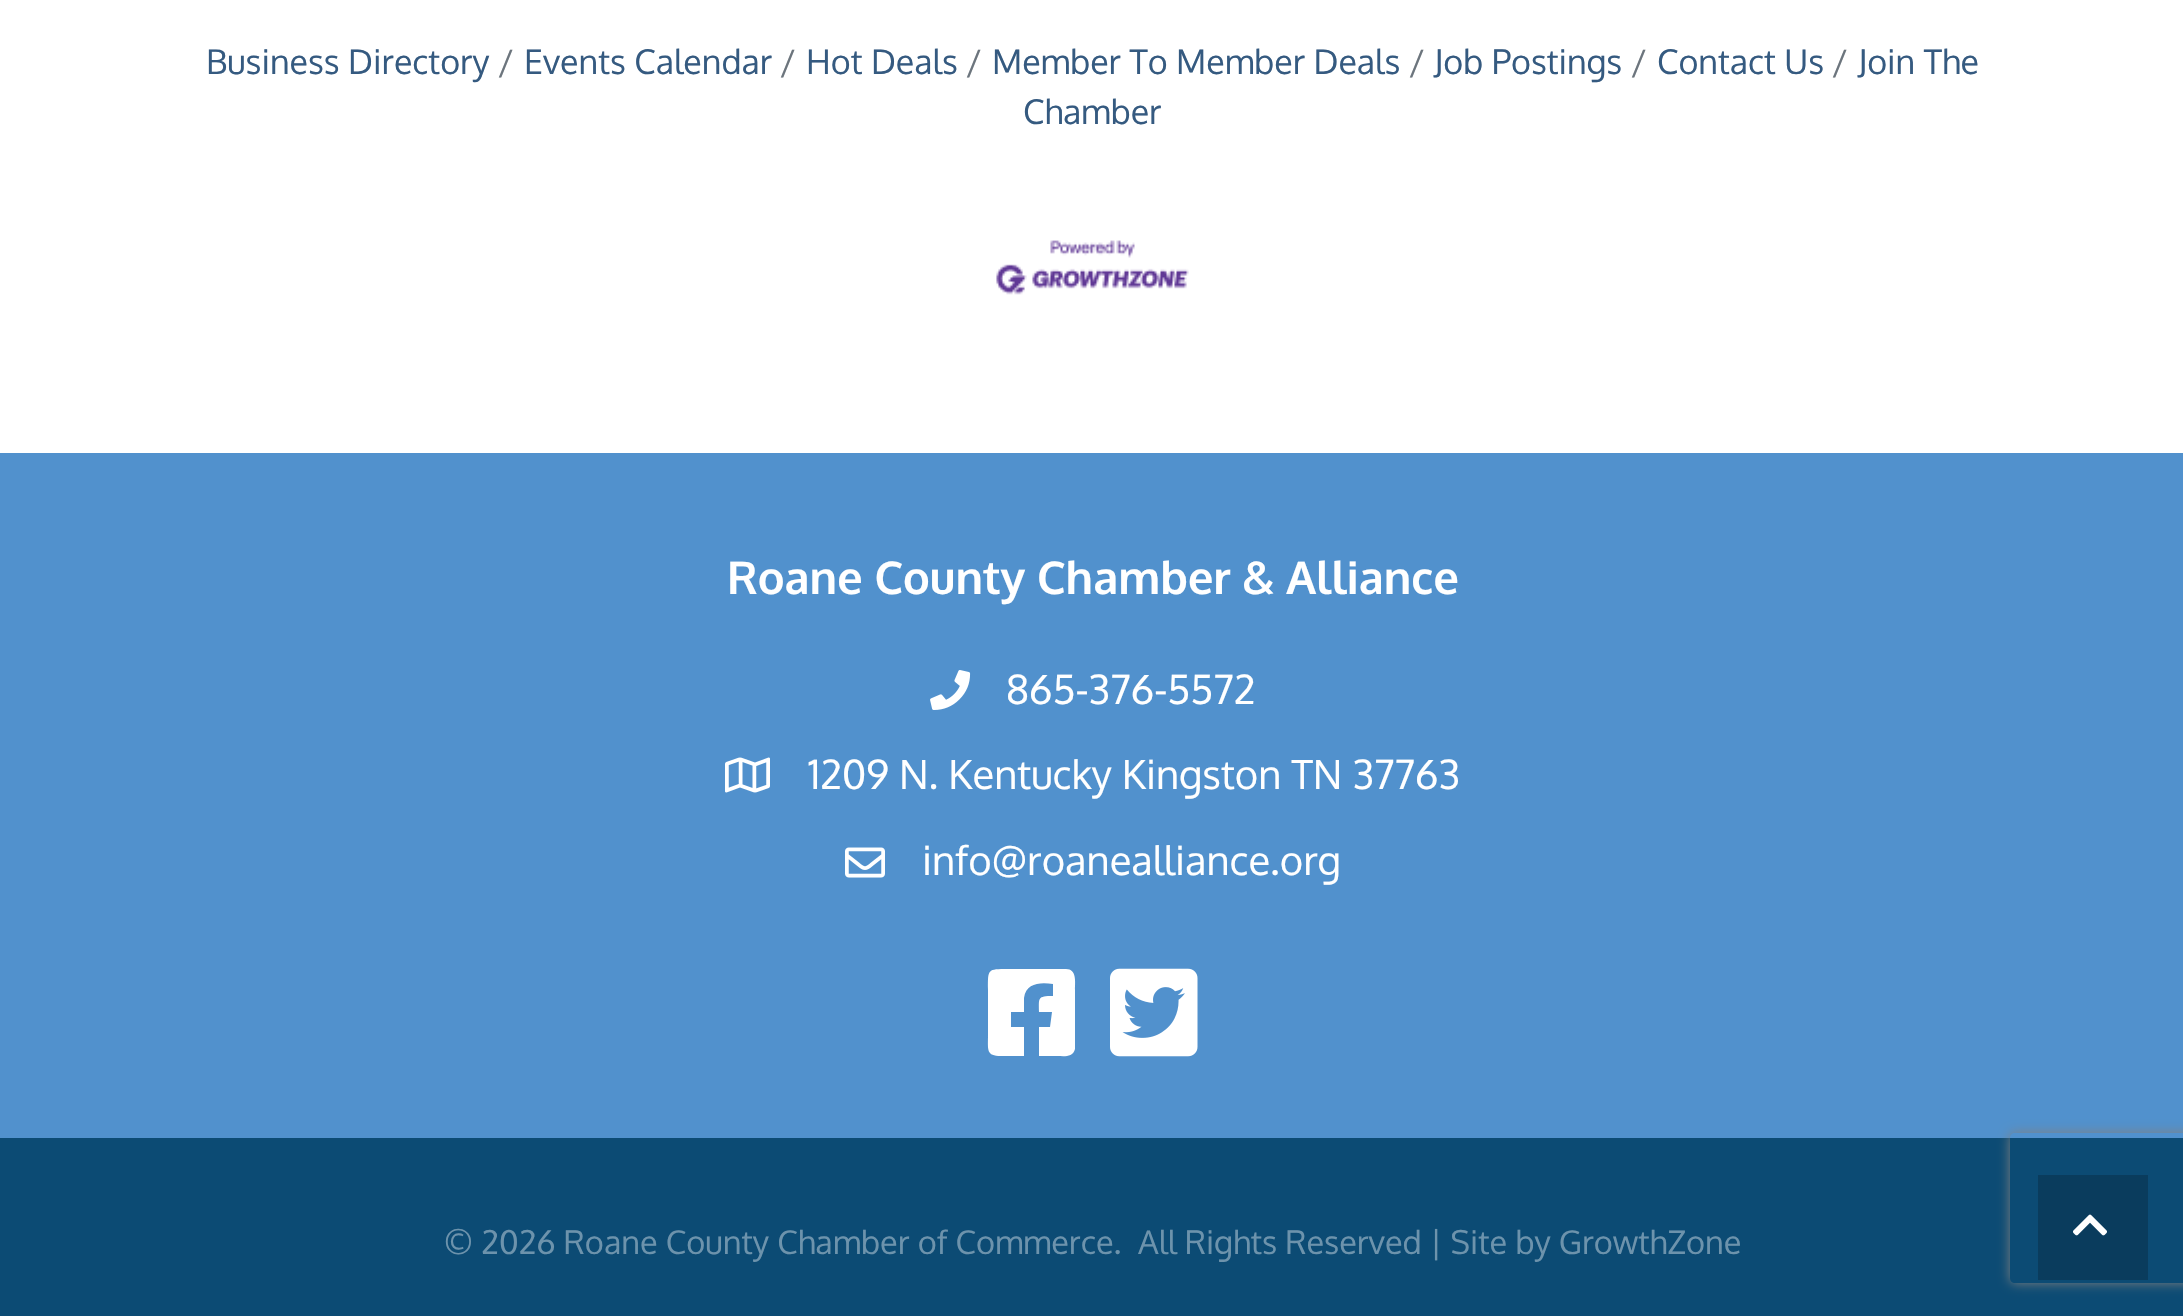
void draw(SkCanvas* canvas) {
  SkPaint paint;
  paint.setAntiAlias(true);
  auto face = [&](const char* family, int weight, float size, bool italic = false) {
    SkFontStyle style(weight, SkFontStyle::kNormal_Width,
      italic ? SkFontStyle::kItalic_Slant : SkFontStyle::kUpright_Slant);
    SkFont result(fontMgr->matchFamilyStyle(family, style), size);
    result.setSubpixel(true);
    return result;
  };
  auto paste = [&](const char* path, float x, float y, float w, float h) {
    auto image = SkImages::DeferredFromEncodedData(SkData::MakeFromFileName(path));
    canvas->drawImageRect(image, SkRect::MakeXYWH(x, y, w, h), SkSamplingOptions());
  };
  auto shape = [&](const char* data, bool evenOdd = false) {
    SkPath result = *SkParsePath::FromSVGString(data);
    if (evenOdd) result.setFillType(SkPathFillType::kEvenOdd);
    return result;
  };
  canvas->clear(0xffffffff);
  paste("img/1.png", 996, 240, 193, 55);
  paint.setColor(0xff5191cd);
  canvas->drawRect(SkRect::MakeXYWH(0, 453, 2183, 685), paint);
  paste("img/2.png", 930, 670, 41, 40);
  paste("img/3.png", 725, 757, 45, 36);
  paste("img/4.png", 845, 847, 40, 31);
  paint.setColor(0xffffffff);
  canvas->drawPath(shape("M1066 969C1077 969 1075 982 1075 990V1049C1073 1058 1063 1056 1057 1056H1039V1027H1050L1052 1012H1039C1039 998 1037 996 1053 996V984C1040 982 1026 983 1024 998V1012H1011V1027H1024V1056H1001C986 1056 988 1050 988 1035V990C988 969 987 969 1008 969Z"), paint);
  paste("img/5.png", 1110, 968, 88, 89);
  paint.setColor(0xff0c4b74);
  canvas->drawRect(SkRect::MakeXYWH(0, 1138, 2183, 178), paint);
  canvas->save();
  canvas->clipPath(shape("M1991 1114H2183V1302H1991ZM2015 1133H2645C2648 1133 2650 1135 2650 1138V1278C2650 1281 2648 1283 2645 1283H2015C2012 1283 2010 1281 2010 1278V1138C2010 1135 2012 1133 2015 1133Z", true), true);
  paint.setColor(0xff808080);
  paint.setMaskFilter(SkMaskFilter::MakeBlur(kNormal_SkBlurStyle, 6));
  canvas->drawRoundRect(SkRect::MakeXYWH(2010, 1133, 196, 150), 5, 5, paint);
  paint.setMaskFilter(nullptr);
  canvas->restore();
  paint.setColor(0xff0a3c5d);
  canvas->drawRect(SkRect::MakeXYWH(2038, 1175, 110, 105), paint);
  paste("img/6.png", 2073, 1214, 34, 22);
  auto f0 = face("Oxygen", 400, 34);
  paint.setColor(0xff6c757d);
  canvas->drawString("/", 498, 74, f0, paint);
  paint.setColor(0xff355a80);
  canvas->drawString("Events Calendar", 524, 74, f0, paint);
  paint.setColor(0xff6c757d);
  canvas->drawString("/", 780, 74, f0, paint);
  paint.setColor(0xff355a80);
  canvas->drawString("Hot Deals", 806, 74, f0, paint);
  paint.setColor(0xff6c757d);
  canvas->drawString("/", 966, 74, f0, paint);
  paint.setColor(0xff355a80);
  canvas->drawString("Member To Member Deals", 992, 74, f0, paint);
  paint.setColor(0xff6c757d);
  canvas->drawString("/", 1832, 74, f0, paint);
  paint.setColor(0xff355a80);
  {
    const struct { const char* s; float x, y; } items[] = {
      {"Join The", 1858, 74},
      {"Chamber", 1023, 124},
      {"Business Directory", 206, 74},
    };
    for (auto [s, x, y] : items) {
      canvas->drawString(s, x, y, f0, paint);
    }
  }
  paint.setColor(0xff6c757d);
  canvas->drawString("/", 1409, 74, f0, paint);
  paint.setColor(0xff355a80);
  canvas->drawString("Job Postings", 1434, 74, f0, paint);
  paint.setColor(0xff6c757d);
  canvas->drawString("/", 1631, 74, f0, paint);
  paint.setColor(0xff355a80);
  canvas->drawString("Contact Us", 1657, 74, f0, paint);
  auto f1 = face("Oxygen", 700, 45);
  paint.setColor(0xffffffff);
  canvas->drawString("Roane County Chamber & Alliance", 727, 594, f1, paint);
  auto f2 = face("Oxygen", 400, 40);
  {
    const struct { const char* s; float x, y; } items[] = {
      {"865-376-5572", 1006, 704},
      {"1209 N. Kentucky Kingston TN 37763", 808, 789},
      {"info@roanealliance.org", 922, 875},
    };
    for (auto [s, x, y] : items) {
      canvas->drawString(s, x, y, f2, paint);
    }
  }
  auto f3 = face("Oxygen", 400, 32.5f);
  paint.setColor(0xff6d93ac);
  canvas->drawString("© 2026 Roane County Chamber of Commerce.", 444, 1254, f3, paint);
  canvas->drawString("All Rights Reserved | Site by GrowthZone", 1138, 1254, f3, paint);
}
